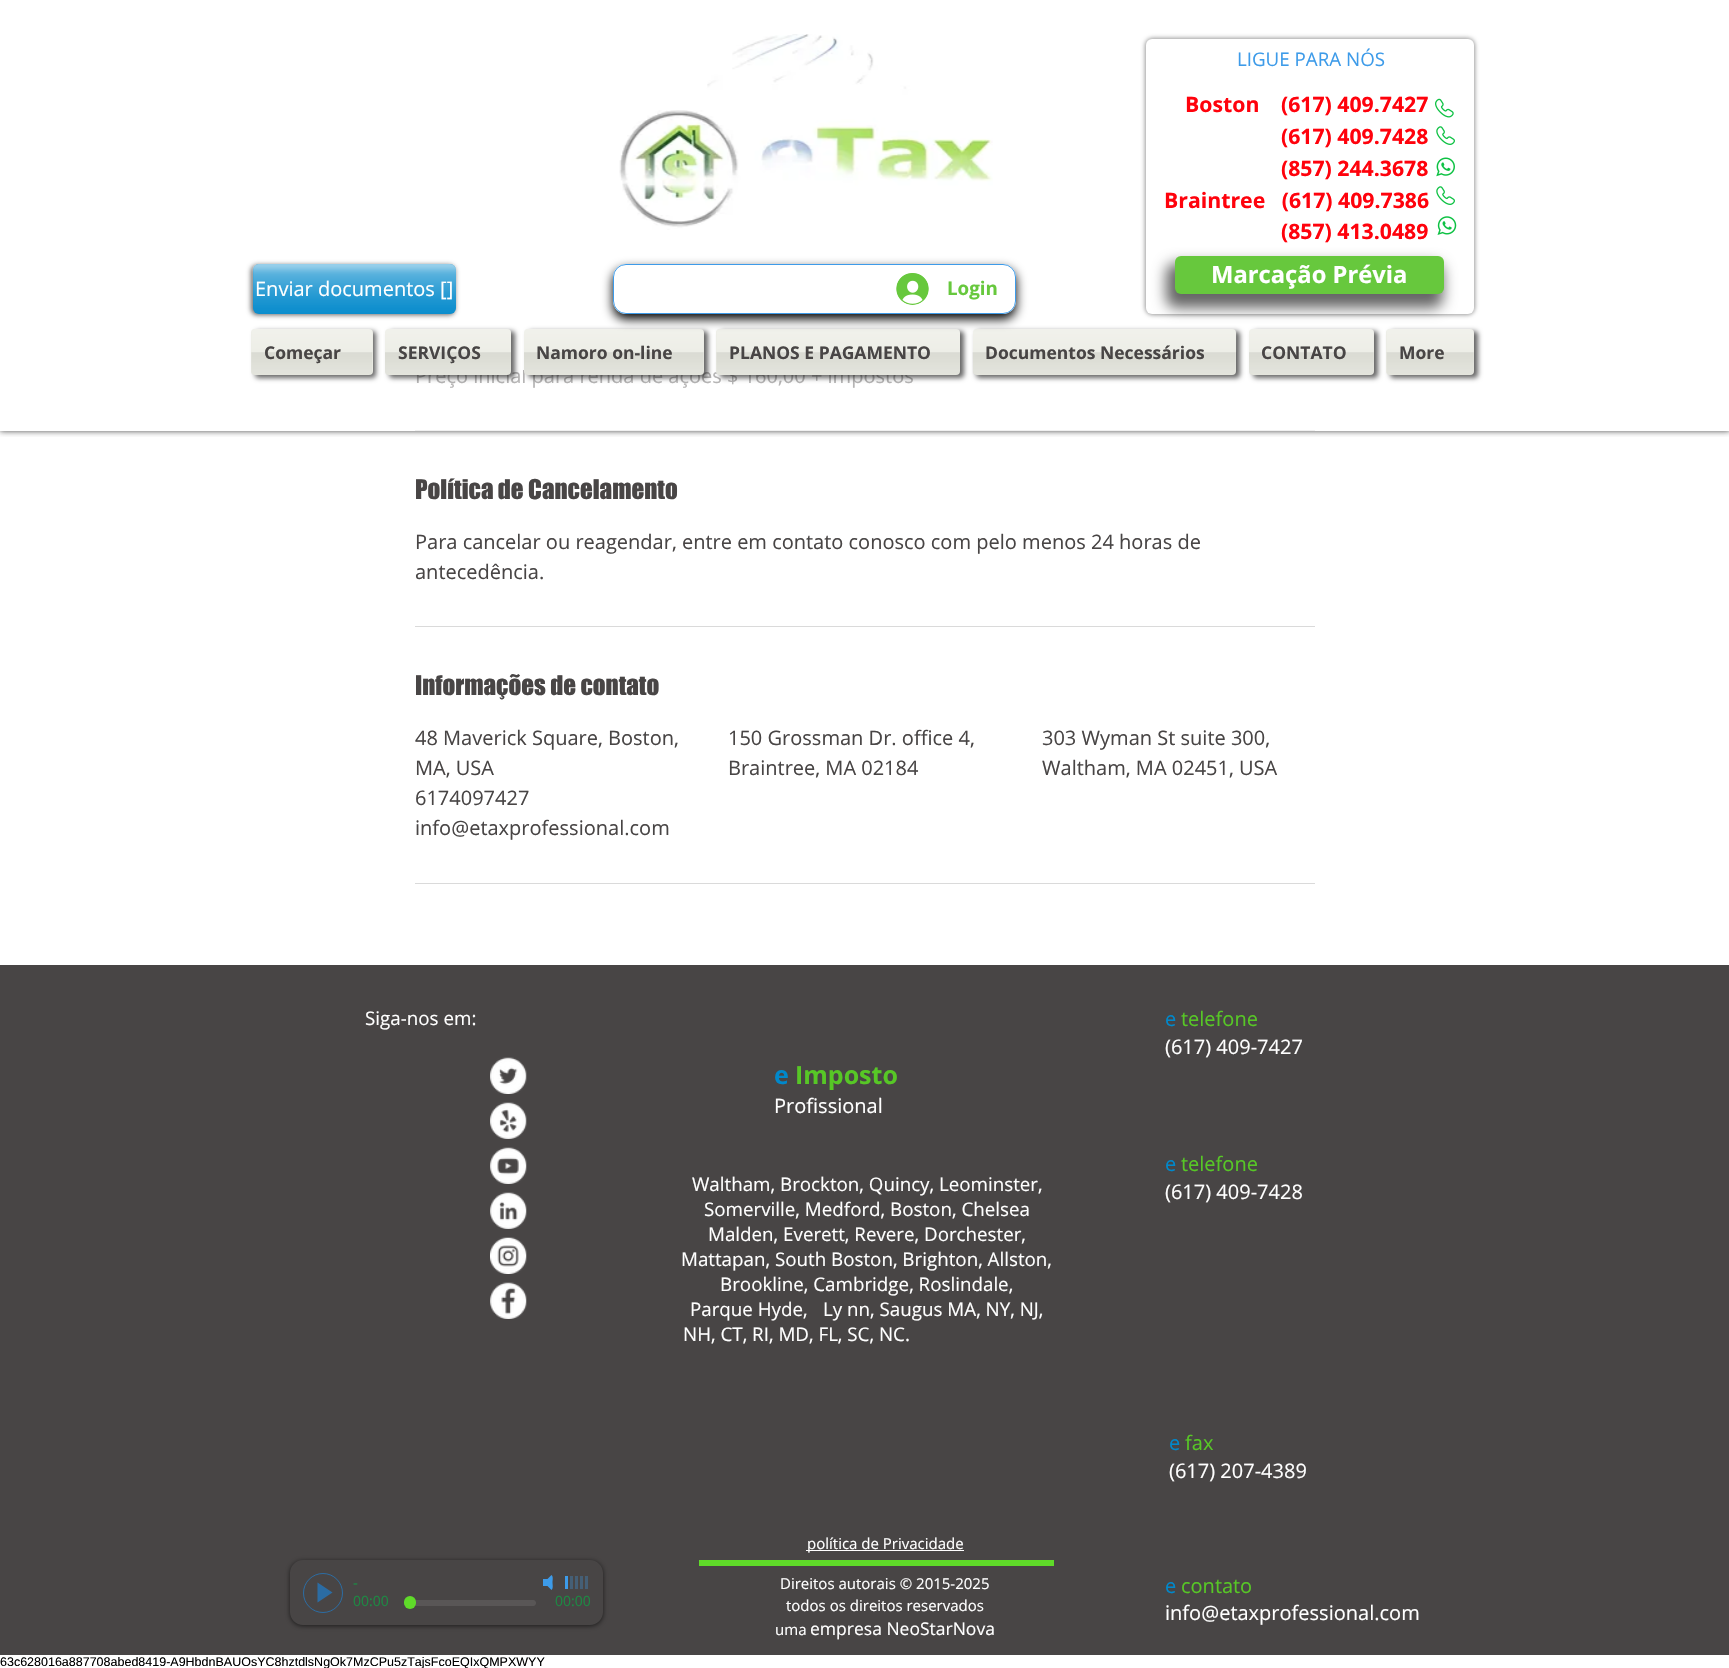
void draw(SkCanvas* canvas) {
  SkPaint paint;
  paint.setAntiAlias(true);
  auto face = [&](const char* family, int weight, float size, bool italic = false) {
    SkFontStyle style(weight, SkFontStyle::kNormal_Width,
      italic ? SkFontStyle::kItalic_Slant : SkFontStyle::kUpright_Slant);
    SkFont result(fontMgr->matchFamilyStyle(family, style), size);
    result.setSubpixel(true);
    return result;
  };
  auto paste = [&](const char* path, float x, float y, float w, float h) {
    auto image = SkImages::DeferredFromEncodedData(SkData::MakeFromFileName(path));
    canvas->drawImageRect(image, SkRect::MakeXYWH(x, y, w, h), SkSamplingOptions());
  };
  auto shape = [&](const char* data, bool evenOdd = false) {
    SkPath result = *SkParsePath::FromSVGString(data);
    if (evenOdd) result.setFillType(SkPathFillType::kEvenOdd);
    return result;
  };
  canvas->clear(0xffffffff);
  paint.setColor(0xfff0f0f0);
  canvas->drawRect(SkRect::MakeXYWH(415, 430, 900, 1), paint);
  canvas->save();
  canvas->clipRect(SkRect::MakeXYWH(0, 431, 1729, 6));
  paint.setColor(0xb3000000);
  paint.setMaskFilter(SkMaskFilter::MakeBlur(kNormal_SkBlurStyle, 3));
  canvas->drawRect(SkRect::MakeXYWH(0, 0, 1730, 431), paint);
  paint.setMaskFilter(nullptr);
  canvas->restore();
  paint.setColor(0x66000000);
  paint.setMaskFilter(SkMaskFilter::MakeBlur(kNormal_SkBlurStyle, 2));
  canvas->drawRoundRect(SkRect::MakeXYWH(1145, 38, 330, 277), 8, 8, paint);
  paint.setMaskFilter(nullptr);
  paint.setColor(0xffffffff);
  canvas->drawRoundRect(SkRect::MakeXYWH(1146, 39, 328, 275), 6, 6, paint);
  paste("img/1.png", 1435, 98, 19, 20);
  paste("img/2.png", 1436, 126, 19, 19);
  paste("img/3.png", 1436, 157, 19, 20);
  paste("img/2.png", 1436, 186, 19, 19);
  paste("img/4.png", 1437, 216, 20, 19);
  paste("img/5.png", 619, 34, 374, 196);
  paint.setColor(0x99000000);
  paint.setMaskFilter(SkMaskFilter::MakeBlur(kNormal_SkBlurStyle, 2.5f));
  canvas->drawRoundRect(SkRect::MakeXYWH(251, 265, 204, 50), 6, 6, paint);
  paint.setMaskFilter(nullptr);
  paint.setColor(0xff0088cb);
  canvas->drawRoundRect(SkRect::MakeXYWH(253, 264, 203, 50), 6, 6, paint);
  paste("img/6.png", 252, 264, 204, 50);
  paint.setColor(0x99000000);
  paint.setMaskFilter(SkMaskFilter::MakeBlur(kNormal_SkBlurStyle, 2.5f));
  canvas->drawRoundRect(SkRect::MakeXYWH(255, 331, 121, 47), 4, 4, paint);
  paint.setMaskFilter(nullptr);
  paint.setColor(0xffebece4);
  canvas->drawRoundRect(SkRect::MakeXYWH(251, 329, 122, 46), 4, 4, paint);
  paste("img/8.png", 251, 329, 122, 46);
  paint.setColor(0x99000000);
  paint.setMaskFilter(SkMaskFilter::MakeBlur(kNormal_SkBlurStyle, 2.5f));
  canvas->drawRoundRect(SkRect::MakeXYWH(976, 331, 264, 47), 4, 4, paint);
  paint.setMaskFilter(nullptr);
  paint.setColor(0xffebece4);
  canvas->drawRoundRect(SkRect::MakeXYWH(973, 329, 263, 46), 4, 4, paint);
  paint.setColor(0x99000000);
  paint.setMaskFilter(SkMaskFilter::MakeBlur(kNormal_SkBlurStyle, 2.5f));
  canvas->drawRoundRect(SkRect::MakeXYWH(1253, 331, 125, 47), 4, 4, paint);
  paint.setMaskFilter(nullptr);
  paint.setColor(0xffebece4);
  canvas->drawRoundRect(SkRect::MakeXYWH(1249, 329, 125, 46), 4, 4, paint);
  paste("img/13.png", 1249, 329, 125, 46);
  paint.setColor(0x99000000);
  paint.setMaskFilter(SkMaskFilter::MakeBlur(kNormal_SkBlurStyle, 2.5f));
  canvas->drawRoundRect(SkRect::MakeXYWH(1390, 331, 88, 47), 4, 4, paint);
  paint.setMaskFilter(nullptr);
  paint.setColor(0xffebece4);
  canvas->drawRoundRect(SkRect::MakeXYWH(1386, 329, 88, 46), 4, 4, paint);
  paste("img/14.png", 1386, 329, 88, 46);
  {
    const struct { float x, y, w, h; SkColor color; } items[] = {
      {415, 626, 900, 1, 0xffdadada},
      {415, 883, 900, 1, 0xffdadada},
      {0, 965, 1729, 690, 0xff484545},
    };
    for (auto [x, y, w, h, color] : items) {
      paint.setColor(color);
      canvas->drawRect(SkRect::MakeXYWH(x, y, w, h), paint);
    }
  }
  paste("img/15.png", 490, 1057, 37, 37);
  paste("img/16.png", 490, 1102, 37, 37);
  paste("img/17.png", 490, 1147, 37, 37);
  paste("img/18.png", 490, 1192, 37, 37);
  paste("img/19.png", 490, 1237, 37, 37);
  paste("img/20.png", 490, 1282, 37, 37);
  paint.setColor(0xffffffff);
  canvas->drawRect(SkRect::MakeXYWH(806, 1550, 158, 1), paint);
  paint.setColor(0xff5fda29);
  canvas->drawRect(SkRect::MakeXYWH(699, 1560, 355, 6), paint);
  canvas->save();
  canvas->clipPath(shape("M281 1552H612V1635H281ZM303 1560H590C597 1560 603 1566 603 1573V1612C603 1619 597 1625 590 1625H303C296 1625 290 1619 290 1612V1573C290 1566 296 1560 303 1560Z", true), true);
  paint.setColor(0x99000000);
  paint.setMaskFilter(SkMaskFilter::MakeBlur(kNormal_SkBlurStyle, 2.5f));
  canvas->drawRoundRect(SkRect::MakeXYWH(290, 1561, 313, 65), 13, 13, paint);
  paint.setMaskFilter(nullptr);
  canvas->restore();
  paint.setStroke(true);
  paint.setStrokeWidth(1);
  paint.setColor(0xff2b6ca3);
  canvas->drawCircle(323, 1593, 19.5f, paint);
  paint.setStroke(false);
  canvas->drawPath(shape("M317.5 1602.5V1582.5L332.5 1592.5Z"), paint);
  paint.setColor(0xff3d9be9);
  canvas->drawPath(shape("M551.5 1590L544 1582.5L551.5 1575C553.5 1576.5 552.5 1580.5 552.5 1582.5C552.5 1584.5 553.5 1588.5 551.5 1590Z"), paint);
  {
    const struct { float x, y, w, h; SkColor color; } items[] = {
      {543, 1579, 5, 7, 0xff3d9be9},
      {565, 1576, 3, 13, 0xff3d9be9},
      {570, 1576, 3, 13, 0xff455f76},
      {575, 1576, 3, 13, 0xff455f76},
      {580, 1576, 3, 13, 0xff455f76},
      {585, 1576, 3, 13, 0xff455f76},
    };
    for (auto [x, y, w, h, color] : items) {
      paint.setColor(color);
      canvas->drawRect(SkRect::MakeXYWH(x, y, w, h), paint);
    }
  }
  paint.setColor(0xff595656);
  canvas->drawPath(shape("M407 1600C403 1600 403 1606 407 1606H533C537 1606 537 1600 533 1600Z"), paint);
  paint.setColor(0xff5fda29);
  canvas->drawRoundRect(SkRect::MakeXYWH(404, 1596, 12, 13), 6, 6, paint);
  auto f0 = face("Open Sans", 400, 18.75f);
  paint.setColor(0xff3d9be9);
  canvas->drawString("LIGUE PARA NÓS", 1237, 66, f0, paint);
  auto f1 = face("Open Sans", 700, 21.25f);
  paint.setColor(0xffff020c);
  {
    const struct { const char* s; float x, y; } items[] = {
      {"Boston", 1185, 112},
      {"(617) 409.7427", 1281, 112},
      {"(617) 409.7428", 1281, 144},
      {"(857) 244.3678", 1281, 176},
      {"Braintree   (617) 409.7386", 1164, 208},
      {"(857) 413.0489", 1281, 239},
    };
    for (auto [s, x, y] : items) {
      canvas->drawString(s, x, y, f1, paint);
    }
  }
  auto f2 = face("Open Sans", 400, 20);
  paint.setColor(0xffffffff);
  canvas->drawString("Enviar documentos []", 255, 296, f2, paint);
  auto f3 = face("Open Sans", 700, 17.5f);
  paint.setColor(0xff484545);
  {
    const struct { const char* s; float x, y; } items[] = {
      {"Começar", 264, 359},
      {"CONTATO", 1261, 359},
      {"More", 1399, 359},
    };
    for (auto [s, x, y] : items) {
      canvas->drawString(s, x, y, f3, paint);
    }
  }
  paint.setColor(0xffb6b5b5);
  canvas->drawString("Preço inicial para renda de ações $ 160,00 + impostos", 415, 383, f2, paint);
  paint.setColor(0xffffffff);
  canvas->drawRect(SkRect::MakeXYWH(416, 367, 473, 3), paint);
  paint.setColor(0x99000000);
  paint.setMaskFilter(SkMaskFilter::MakeBlur(kNormal_SkBlurStyle, 2.5f));
  canvas->drawRoundRect(SkRect::MakeXYWH(720, 331, 244, 47), 4, 4, paint);
  paint.setMaskFilter(nullptr);
  paste("img/12.png", 972, 329, 265, 46);
  paint.setMaskFilter(SkMaskFilter::MakeBlur(kNormal_SkBlurStyle, 7));
  canvas->drawRoundRect(SkRect::MakeXYWH(1166, 263, 277, 45), 10, 10, paint);
  paint.setMaskFilter(nullptr);
  paint.setColor(0xff67c83d);
  canvas->drawRoundRect(SkRect::MakeXYWH(1175, 256, 269, 38), 6, 6, paint);
  auto f4 = face("Open Sans", 700, 23.75f);
  paint.setColor(0xffffffff);
  canvas->drawString("Marcação Prévia", 1211, 283, f4, paint);
  paint.setColor(0x99000000);
  paint.setMaskFilter(SkMaskFilter::MakeBlur(kNormal_SkBlurStyle, 2.5f));
  canvas->drawRoundRect(SkRect::MakeXYWH(528, 331, 180, 47), 4, 4, paint);
  paint.setMaskFilter(nullptr);
  paint.setColor(0xffebece4);
  canvas->drawRoundRect(SkRect::MakeXYWH(716, 329, 244, 46), 4, 4, paint);
  paste("img/11.png", 716, 329, 244, 46);
  canvas->drawRoundRect(SkRect::MakeXYWH(524, 329, 180, 46), 4, 4, paint);
  paste("img/10.png", 524, 329, 180, 46);
  canvas->save();
  canvas->clipPath(shape("M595 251H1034V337H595ZM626 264H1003C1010 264 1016 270 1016 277V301C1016 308 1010 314 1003 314H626C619 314 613 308 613 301V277C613 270 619 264 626 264Z", true), true);
  paint.setColor(0xff000000);
  paint.setMaskFilter(SkMaskFilter::MakeBlur(kNormal_SkBlurStyle, 5.5f));
  canvas->drawRoundRect(SkRect::MakeXYWH(613, 269, 403, 50), 13, 13, paint);
  paint.setMaskFilter(nullptr);
  canvas->restore();
  paint.setStroke(true);
  paint.setColor(0xff3d9be9);
  canvas->drawRoundRect(SkRect::MakeXYWH(613.5f, 264.5f, 402, 49), 12.5f, 12.5f, paint);
  paste("img/7.png", 896, 273, 33, 32);
  auto f5 = face("Open Sans", 700, 18.75f);
  paint.setStroke(false);
  paint.setColor(0xff67c83d);
  canvas->drawString("Login", 947, 295, f5, paint);
  paint.setColor(0xff484545);
  {
    const struct { const char* s; float x, y; } items[] = {
      {"Documentos Necessários", 985, 359},
      {"PLANOS E PAGAMENTO", 729, 359},
      {"Namoro on-line", 536, 359},
    };
    for (auto [s, x, y] : items) {
      canvas->drawString(s, x, y, f3, paint);
    }
  }
  paint.setColor(0x99000000);
  paint.setMaskFilter(SkMaskFilter::MakeBlur(kNormal_SkBlurStyle, 2.5f));
  canvas->drawRoundRect(SkRect::MakeXYWH(389, 331, 126, 47), 4, 4, paint);
  paint.setMaskFilter(nullptr);
  paint.setColor(0xffebece4);
  canvas->drawRoundRect(SkRect::MakeXYWH(385, 329, 126, 46), 4, 4, paint);
  paste("img/9.png", 385, 329, 126, 46);
  paint.setColor(0xff484545);
  canvas->drawString("SERVIÇOS", 398, 359, f3, paint);
  auto f6 = face("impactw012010", 400, 25);
  canvas->drawString("Política de Cancelamento", 415, 499, f6, paint);
  canvas->drawString("Para cancelar ou reagendar, entre em contato conosco com pelo menos 24 horas de", 415, 549, f2, paint);
  canvas->drawString("antecedência.", 415, 579, f2, paint);
  canvas->drawString("Informações de contato", 415, 695, f6, paint);
  {
    const struct { const char* s; float x, y; } items[] = {
      {"48 Maverick Square, Boston,", 415, 745},
      {"MA, USA", 415, 775},
      {"6174097427", 415, 805},
      {"info@etaxprofessional.com", 415, 835},
      {"150 Grossman Dr. office 4,", 728, 745},
      {"Braintree, MA 02184", 728, 775},
      {"303 Wyman St suite 300,", 1042, 745},
      {"Waltham, MA 02451, USA", 1042, 775},
    };
    for (auto [s, x, y] : items) {
      canvas->drawString(s, x, y, f2, paint);
    }
  }
  paint.setColor(0xffffffff);
  canvas->drawString("Siga-nos em:", 365, 1025, f0, paint);
  paint.setColor(0xff0088cb);
  canvas->drawString("e", 1165, 1026, f2, paint);
  paint.setColor(0xff57c726);
  canvas->drawString("telefone", 1181, 1026, f2, paint);
  paint.setColor(0xffffffff);
  canvas->drawString("(617) 409-7427", 1165, 1054, f2, paint);
  auto f7 = face("Open Sans", 700, 25);
  paint.setColor(0xff0088cb);
  canvas->drawString("e", 774, 1084, f7, paint);
  paint.setColor(0xff57c726);
  canvas->drawString("Imposto", 795, 1084, f7, paint);
  paint.setColor(0xffffffff);
  canvas->drawString("Profissional", 774, 1113, f2, paint);
  {
    const struct { const char* s; float x, y; } items[] = {
      {"Waltham, Brockton, Quincy, Leominster,", 692, 1191},
      {"Somerville, Medford, Boston, Chelsea", 704, 1216},
      {"Malden, Everett, Revere, Dorchester,", 708, 1241},
      {"Mattapan, South Boston, Brighton, Allston,", 681, 1266},
      {"Brookline, Cambridge, Roslindale,", 720, 1291},
      {"Parque Hyde,", 690, 1316},
      {"Ly nn, Saugus MA, NY, NJ,", 823, 1316},
      {"NH, CT, RI, MD, FL, SC, NC.", 683, 1341},
    };
    for (auto [s, x, y] : items) {
      canvas->drawString(s, x, y, f0, paint);
    }
  }
  paint.setColor(0xff0088cb);
  canvas->drawString("e", 1165, 1171, f2, paint);
  paint.setColor(0xff57c726);
  canvas->drawString("telefone", 1181, 1171, f2, paint);
  paint.setColor(0xffffffff);
  canvas->drawString("(617) 409-7428", 1165, 1199, f2, paint);
  paint.setColor(0xff0088cb);
  canvas->drawString("e", 1169, 1450, f2, paint);
  paint.setColor(0xff57c726);
  canvas->drawString("fax", 1185, 1450, f2, paint);
  paint.setColor(0xffffffff);
  canvas->drawString("(617) 207-4389", 1169, 1478, f2, paint);
  auto f8 = face("Open Sans", 400, 15);
  canvas->drawString("política de Privacidade", 807, 1549, f8, paint);
  paint.setColor(0xff1c8a43);
  canvas->drawString("-", 353, 1588, f8, paint);
  auto f9 = face("Open Sans", 400, 14);
  canvas->drawString("00:00", 353, 1606, f9, paint);
  canvas->drawString("00:00", 555, 1606, f9, paint);
  paint.setColor(0xffffffff);
  {
    const struct { const char* s; float x, y; } items[] = {
      {"Direitos autorais © 2015-2025", 780, 1589},
      {"todos os direitos reservados", 786, 1611},
      {"uma", 775, 1635},
    };
    for (auto [s, x, y] : items) {
      canvas->drawString(s, x, y, f8, paint);
    }
  }
  auto f10 = face("Open Sans", 400, 17.5f);
  canvas->drawString("empresa NeoStarNova", 810, 1635, f10, paint);
  paint.setColor(0xff0088cb);
  canvas->drawString("e", 1165, 1593, f2, paint);
  paint.setColor(0xff57c726);
  canvas->drawString("contato", 1181, 1593, f2, paint);
  paint.setColor(0xffffffff);
  canvas->drawString("info@etaxprofessional.com", 1165, 1620, f2, paint);
  auto f11 = face("Liberation Sans", 400, 12.5f);
  paint.setColor(0xff000000);
  canvas->drawString("63c628016a887708abed8419-A9HbdnBAUOsYC8hztdlsNgOk7MzCPu5zTajsFcoEQIxQMPXWYY", 0, 1666, f11, paint);
}
